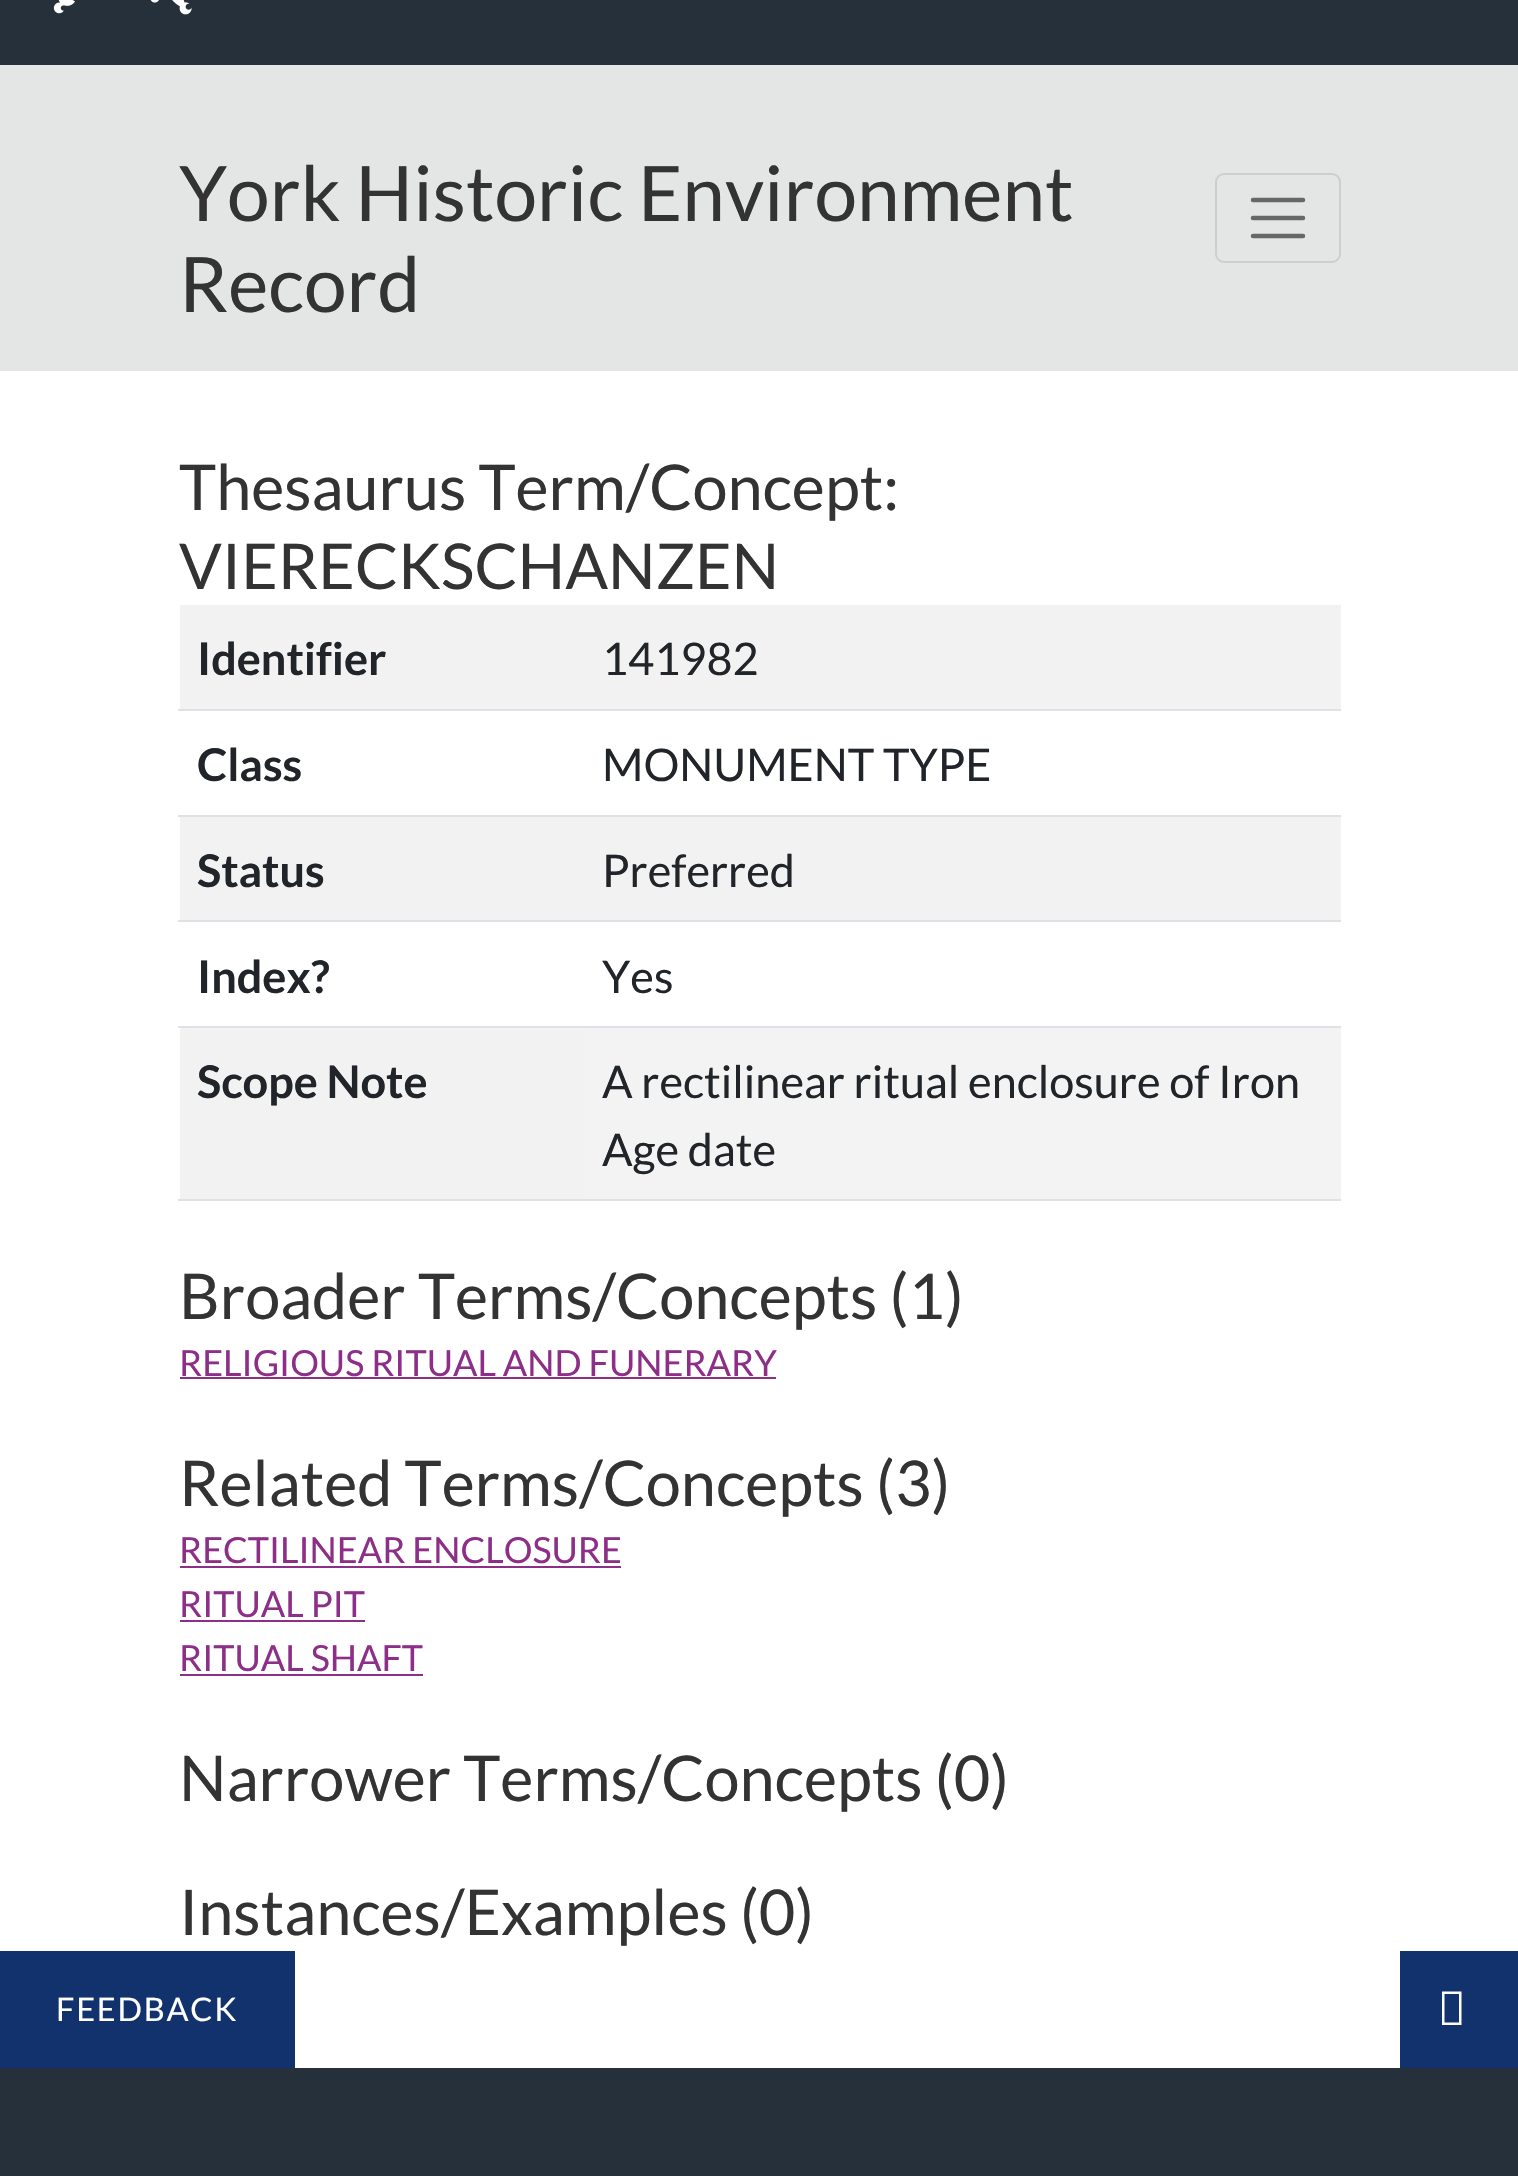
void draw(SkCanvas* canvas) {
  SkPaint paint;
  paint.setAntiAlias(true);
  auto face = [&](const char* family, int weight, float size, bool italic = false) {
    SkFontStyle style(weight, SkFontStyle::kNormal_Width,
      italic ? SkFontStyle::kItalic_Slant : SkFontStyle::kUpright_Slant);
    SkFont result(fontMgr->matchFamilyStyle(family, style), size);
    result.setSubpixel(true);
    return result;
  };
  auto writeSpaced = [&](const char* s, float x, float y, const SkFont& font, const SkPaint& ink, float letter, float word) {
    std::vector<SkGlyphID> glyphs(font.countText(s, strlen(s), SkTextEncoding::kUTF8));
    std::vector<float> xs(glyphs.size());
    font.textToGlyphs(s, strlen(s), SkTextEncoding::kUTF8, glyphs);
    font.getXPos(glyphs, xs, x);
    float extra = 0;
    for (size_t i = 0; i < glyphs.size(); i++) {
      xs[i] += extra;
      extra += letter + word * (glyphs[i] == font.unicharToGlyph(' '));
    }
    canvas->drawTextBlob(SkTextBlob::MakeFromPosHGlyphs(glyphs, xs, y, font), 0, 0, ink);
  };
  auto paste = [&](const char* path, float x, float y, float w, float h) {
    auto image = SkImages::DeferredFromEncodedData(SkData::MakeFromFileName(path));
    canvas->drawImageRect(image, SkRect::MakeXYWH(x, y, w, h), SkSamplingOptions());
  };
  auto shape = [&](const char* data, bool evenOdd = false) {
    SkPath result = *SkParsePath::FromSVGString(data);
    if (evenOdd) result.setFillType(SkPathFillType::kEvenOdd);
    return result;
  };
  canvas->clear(0xffffffff);
  paint.setColor(0xff25303b);
  canvas->drawRect(SkRect::MakeXYWH(0, 0, 1518, 65), paint);
  paste("img/1.png", 53, 0, 139, 15);
  paint.setColor(0xffe3e6e5);
  canvas->drawRect(SkRect::MakeXYWH(0, 65, 1518, 306), paint);
  paint.setStroke(true);
  paint.setStrokeWidth(2);
  paint.setColor(0xffcccfce);
  canvas->drawRoundRect(SkRect::MakeXYWH(1216, 174, 124, 88), 8, 8, paint);
  paint.setStrokeWidth(4.5f);
  paint.setStrokeCap(SkPaint::kRound_Cap);
  paint.setColor(0xff666867);
  canvas->drawPath(shape("M1253 200H1303M1253 218H1303M1253 236H1303"), paint);
  paint.setStroke(false);
  {
    const struct { float x, y, w, h; SkColor color; } items[] = {
      {180, 605, 1161, 104, 0xfff2f2f2},
      {178, 709, 1163, 2, 0xffdee2e6},
      {178, 815, 1163, 2, 0xffdee2e6},
      {180, 817, 1161, 103, 0xfff2f2f2},
      {178, 920, 1163, 2, 0xffdee2e6},
      {178, 1026, 1163, 2, 0xffdee2e6},
      {180, 1028, 405, 171, 0xfff2f2f2},
      {585, 1028, 756, 171, 0xfff3f3f3},
      {178, 1199, 1163, 2, 0xffdee2e6},
      {180, 1377, 596, 2, 0xff8d2f88},
      {180, 1566, 441, 2, 0xff8d2f88},
      {180, 1620, 185, 2, 0xff8d2f88},
      {180, 1674, 243, 2, 0xff8d2f88},
      {0, 1951, 295, 117, 0xff12326e},
      {1400, 1951, 118, 117, 0xff12326e},
    };
    for (auto [x, y, w, h, color] : items) {
      paint.setColor(color);
      canvas->drawRect(SkRect::MakeXYWH(x, y, w, h), paint);
    }
  }
  paint.setColor(0xffffffff);
  canvas->drawPath(shape("M1442 2025V1991.5H1461.5V2025ZM1444.5 2022.5H1459V1994H1444.5Z"), paint);
  paint.setColor(0xff25303b);
  canvas->drawRect(SkRect::MakeXYWH(0, 2068, 1518, 108), paint);
  auto f0 = face("Lato", 400, 76.5f);
  paint.setColor(0xff333333);
  canvas->drawString("York Historic Environment", 179, 221, f0, paint);
  canvas->drawString("Record", 179, 312, f0, paint);
  auto f1 = face("Lato", 400, 63);
  canvas->drawString("Thesaurus Term/Concept:", 179, 510, f1, paint);
  canvas->drawString("VIERECKSCHANZEN", 179, 589, f1, paint);
  auto f2 = face("Lato", 700, 45);
  paint.setColor(0xff212529);
  canvas->drawString("Identifier", 197, 675, f2, paint);
  auto f3 = face("Lato", 400, 45);
  canvas->drawString("141982", 602, 675, f3, paint);
  canvas->drawString("Class", 197, 781, f2, paint);
  canvas->drawString("MONUMENT TYPE", 602, 781, f3, paint);
  canvas->drawString("Status", 197, 887, f2, paint);
  canvas->drawString("Preferred", 602, 887, f3, paint);
  canvas->drawString("Index?", 197, 993, f2, paint);
  canvas->drawString("Yes", 602, 993, f3, paint);
  canvas->drawString("Scope Note", 197, 1098, f2, paint);
  canvas->drawString("A rectilinear ritual enclosure of Iron", 602, 1098, f3, paint);
  canvas->drawString("Age date", 602, 1166, f3, paint);
  paint.setColor(0xff333333);
  canvas->drawString("Broader Terms/Concepts (1)", 179, 1319, f1, paint);
  auto f4 = face("Lato", 400, 36);
  paint.setColor(0xff8d2f88);
  canvas->drawString("RELIGIOUS RITUAL AND FUNERARY", 179, 1376, f4, paint);
  paint.setColor(0xff333333);
  canvas->drawString("Related Terms/Concepts (3)", 179, 1506, f1, paint);
  paint.setColor(0xff8d2f88);
  {
    const struct { const char* s; float x, y; } items[] = {
      {"RECTILINEAR ENCLOSURE", 179, 1563},
      {"RITUAL PIT", 179, 1617},
      {"RITUAL SHAFT", 179, 1671},
    };
    for (auto [s, x, y] : items) {
      canvas->drawString(s, x, y, f4, paint);
    }
  }
  paint.setColor(0xff333333);
  canvas->drawString("Narrower Terms/Concepts (0)", 179, 1801, f1, paint);
  canvas->drawString("Instances/Examples (0)", 179, 1935, f1, paint);
  auto f5 = face("Lato", 400, 32.5f);
  paint.setColor(0xffffffff);
  writeSpaced("FEEDBACK", 56, 2021, f5, paint, 1.75f, 0);
}
